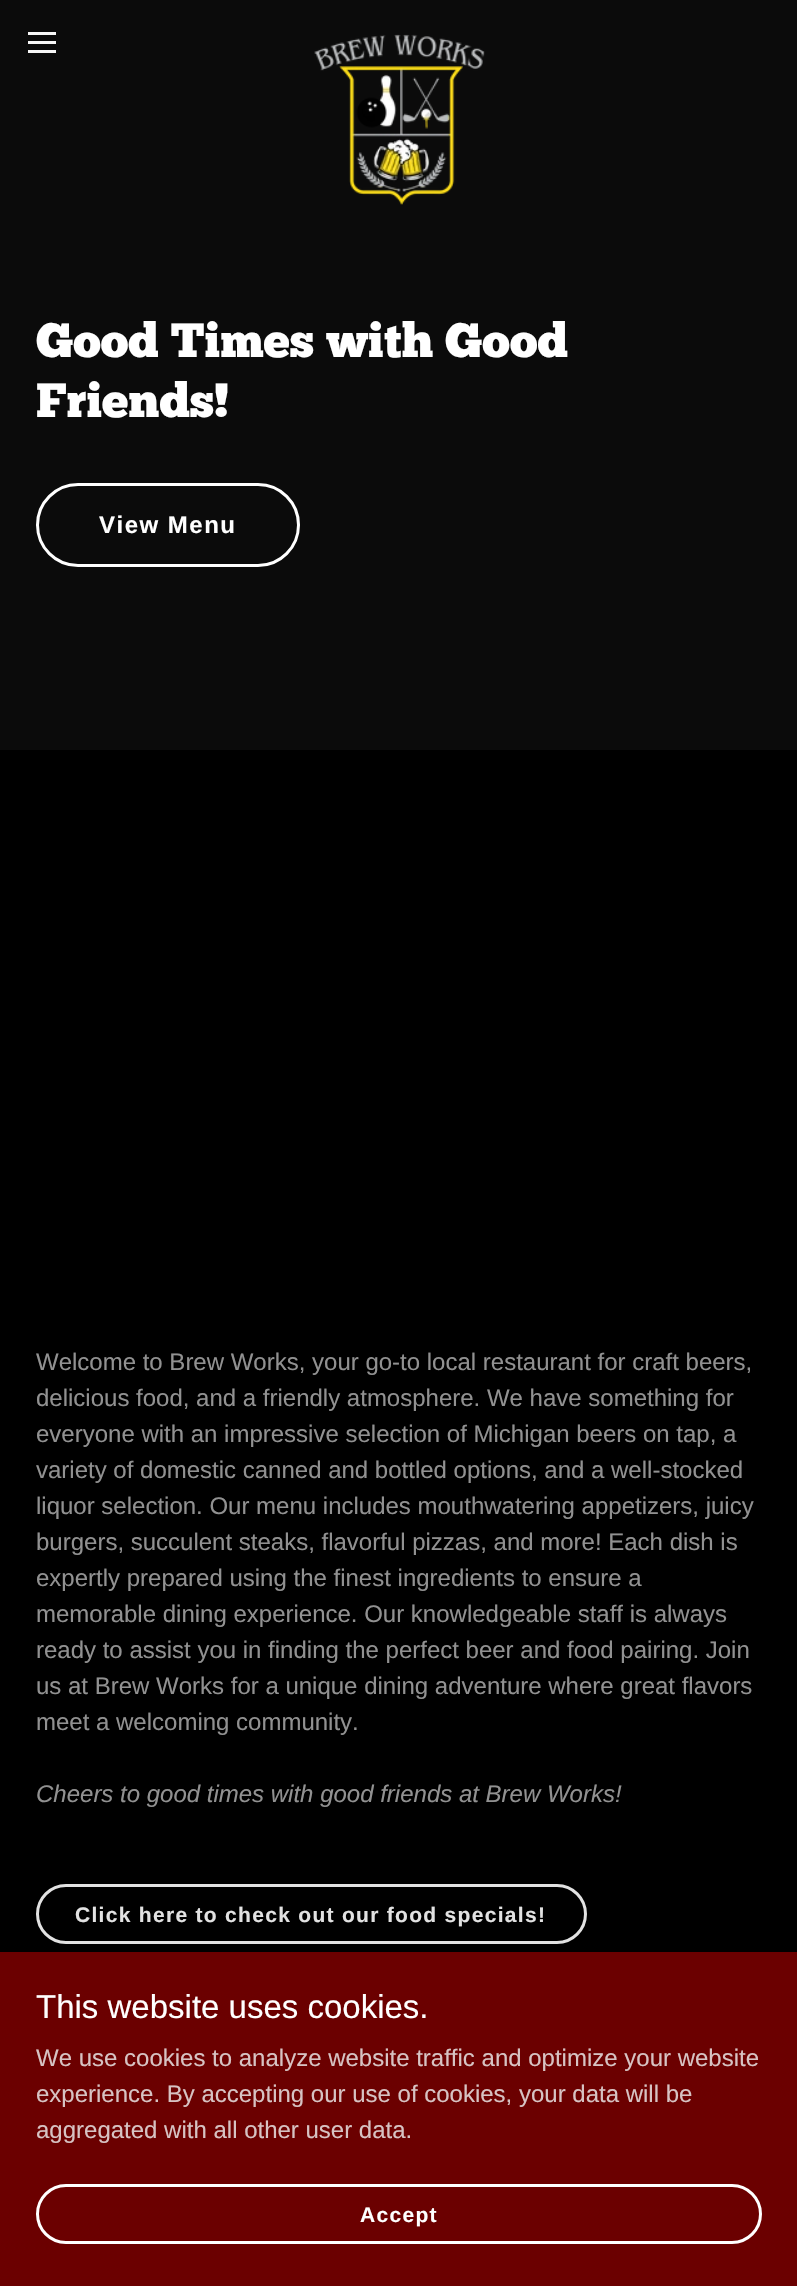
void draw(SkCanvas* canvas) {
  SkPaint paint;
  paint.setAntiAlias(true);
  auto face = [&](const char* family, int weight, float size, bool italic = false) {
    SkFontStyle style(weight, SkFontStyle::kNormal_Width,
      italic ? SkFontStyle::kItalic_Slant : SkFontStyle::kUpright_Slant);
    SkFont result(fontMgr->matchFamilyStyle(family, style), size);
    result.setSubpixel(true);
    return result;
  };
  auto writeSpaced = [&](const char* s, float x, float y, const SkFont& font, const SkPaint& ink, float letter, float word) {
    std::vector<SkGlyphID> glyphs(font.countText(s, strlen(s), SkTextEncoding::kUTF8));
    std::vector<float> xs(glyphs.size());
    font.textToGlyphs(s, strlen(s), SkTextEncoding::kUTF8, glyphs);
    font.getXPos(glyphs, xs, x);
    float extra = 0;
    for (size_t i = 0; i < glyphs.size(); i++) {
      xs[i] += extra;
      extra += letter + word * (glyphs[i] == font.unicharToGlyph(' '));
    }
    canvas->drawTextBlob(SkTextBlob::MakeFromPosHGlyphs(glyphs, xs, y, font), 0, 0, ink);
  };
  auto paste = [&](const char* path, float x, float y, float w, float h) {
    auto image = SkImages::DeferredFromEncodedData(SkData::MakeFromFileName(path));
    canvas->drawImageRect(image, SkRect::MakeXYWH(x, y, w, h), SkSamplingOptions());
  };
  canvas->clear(0xff000000);
  {
    const struct { float x, y, w, h; SkColor color; } items[] = {
      {0, 0, 797, 750, 0xff0b0b0b},
      {28, 32, 28, 3, 0xfff7f7f7},
      {28, 41, 28, 3, 0xfff7f7f7},
      {28, 50, 28, 3, 0xfff7f7f7},
    };
    for (auto [x, y, w, h, color] : items) {
      paint.setColor(color);
      canvas->drawRect(SkRect::MakeXYWH(x, y, w, h), paint);
    }
  }
  paste("img/1.png", 314, 34, 171, 171);
  paint.setStroke(true);
  paint.setStrokeWidth(3);
  paint.setColor(0xffffffff);
  canvas->drawRoundRect(SkRect::MakeXYWH(37.5f, 484.5f, 261, 81), 40.5f, 40.5f, paint);
  paint.setColor(0xffe2e2e2);
  canvas->drawRoundRect(SkRect::MakeXYWH(37.5f, 1885.5f, 548, 57), 28.5f, 28.5f, paint);
  paint.setStroke(false);
  paint.setColor(0xff6b0000);
  canvas->drawRect(SkRect::MakeXYWH(0, 1952, 797, 334), paint);
  paint.setStroke(true);
  paint.setColor(0xffffffff);
  canvas->drawRoundRect(SkRect::MakeXYWH(37.5f, 2185.5f, 723, 57), 28.5f, 28.5f, paint);
  auto f0 = face("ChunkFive", 400, 48);
  paint.setStroke(false);
  canvas->drawString("Good Times with Good", 36, 357, f0, paint);
  canvas->drawString("Friends!", 36, 417, f0, paint);
  auto f1 = face("Liberation Sans", 700, 24);
  writeSpaced("View Menu", 99, 533, f1, paint, 1.5f, 0);
  auto f2 = face("Liberation Sans", 400, 24);
  paint.setColor(0xff919191);
  {
    const struct { const char* s; float x, y; } items[] = {
      {"Welcome to Brew Works, your go-to local restaurant for craft beers,", 36, 1370},
      {"delicious food, and a friendly atmosphere. We have something for", 36, 1406},
      {"everyone with an impressive selection of Michigan beers on tap, a", 36, 1442},
      {"variety of domestic canned and bottled options, and a well-stocked", 36, 1478},
      {"liquor selection. Our menu includes mouthwatering appetizers, juicy", 36, 1514},
      {"burgers, succulent steaks, flavorful pizzas, and more! Each dish is", 36, 1550},
      {"expertly prepared using the finest ingredients to ensure a", 36, 1586},
      {"memorable dining experience. Our knowledgeable staff is always", 36, 1622},
      {"ready to assist you in finding the perfect beer and food pairing. Join", 36, 1658},
      {"us at Brew Works for a unique dining adventure where great flavors", 36, 1694},
      {"meet a welcoming community.", 36, 1730},
    };
    for (auto [s, x, y] : items) {
      canvas->drawString(s, x, y, f2, paint);
    }
  }
  auto f3 = face("Liberation Sans", 400, 24, true);
  canvas->drawString("Cheers to good times with good friends at Brew Works!", 36, 1802, f3, paint);
  auto f4 = face("Liberation Sans", 700, 21);
  paint.setColor(0xffe2e2e2);
  writeSpaced("Click here to check out our food specials!", 75, 1922, f4, paint, 1.3f, 0);
  auto f5 = face("Liberation Sans", 400, 33);
  paint.setColor(0xffffffff);
  canvas->drawString("This website uses cookies.", 36, 2018, f5, paint);
  paint.setColor(0xffd7c3c3);
  {
    const struct { const char* s; float x, y; } items[] = {
      {"We use cookies to analyze website traffic and optimize your website", 36, 2066},
      {"experience. By accepting our use of cookies, your data will be", 36, 2102},
      {"aggregated with all other user data.", 36, 2138},
    };
    for (auto [s, x, y] : items) {
      canvas->drawString(s, x, y, f2, paint);
    }
  }
  paint.setColor(0xffffffff);
  writeSpaced("Accept", 360, 2222, f4, paint, 1.3f, 0);
}
